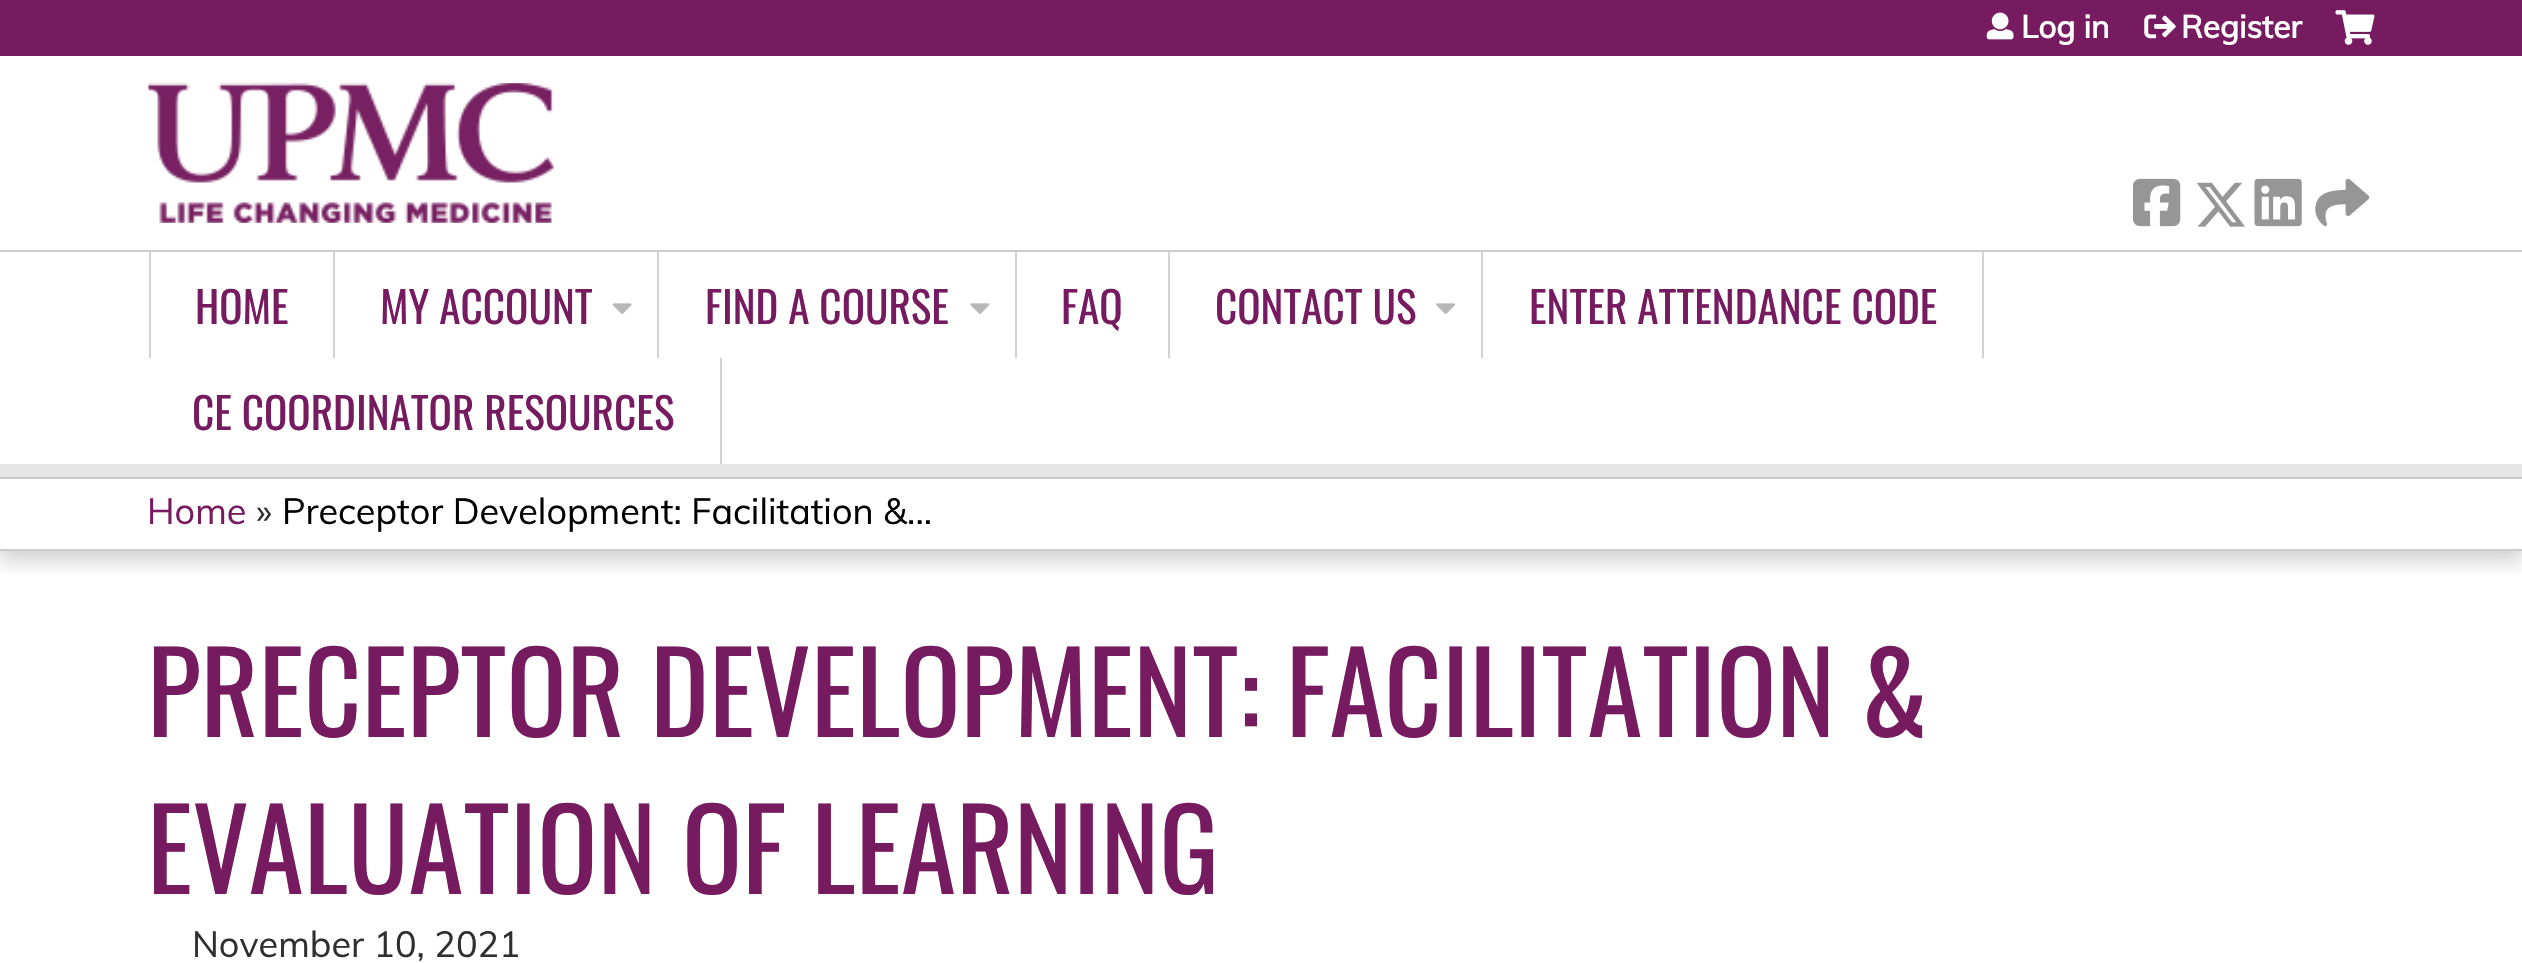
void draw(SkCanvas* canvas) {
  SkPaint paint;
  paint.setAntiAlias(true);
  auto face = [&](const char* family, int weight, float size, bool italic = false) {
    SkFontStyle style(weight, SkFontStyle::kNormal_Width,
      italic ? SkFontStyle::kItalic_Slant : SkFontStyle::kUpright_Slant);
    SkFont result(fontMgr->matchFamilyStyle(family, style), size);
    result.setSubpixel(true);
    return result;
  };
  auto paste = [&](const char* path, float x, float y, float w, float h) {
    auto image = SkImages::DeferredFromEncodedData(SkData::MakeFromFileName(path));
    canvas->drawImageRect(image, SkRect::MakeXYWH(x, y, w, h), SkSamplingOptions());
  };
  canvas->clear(0xffffffff);
  paint.setColor(0xff771b61);
  canvas->drawRect(SkRect::MakeXYWH(0, 0, 2522, 56), paint);
  paste("img/1.png", 1986, 12, 28, 28);
  paste("img/2.png", 2144, 14, 32, 25);
  paste("img/3.png", 2335, 10, 40, 35);
  paste("img/4.png", 2133, 178, 48, 49);
  paste("img/5.png", 2196, 182, 49, 45);
  paste("img/6.png", 2254, 178, 48, 49);
  paste("img/7.png", 2315, 178, 55, 49);
  paste("img/8.png", 148, 83, 406, 140);
  paint.setColor(0xffcccccc);
  canvas->drawRect(SkRect::MakeXYWH(0, 250, 2522, 2), paint);
  canvas->save();
  canvas->clipRect(SkRect::MakeXYWH(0, 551, 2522, 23));
  paint.setColor(0x33000000);
  paint.setMaskFilter(SkMaskFilter::MakeBlur(kNormal_SkBlurStyle, 11));
  canvas->drawRect(SkRect::MakeXYWH(-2, 482, 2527, 78), paint);
  paint.setMaskFilter(nullptr);
  canvas->restore();
  {
    const struct { float x, y, w, h; SkColor color; } items[] = {
      {0, 464, 2522, 13, 0xffe5e5e5},
      {333, 252, 2, 106, 0xffd2d2d2},
      {149, 252, 2, 106, 0xffd2d2d2},
      {657, 252, 2, 106, 0xffd2d2d2},
    };
    for (auto [x, y, w, h, color] : items) {
      paint.setColor(color);
      canvas->drawRect(SkRect::MakeXYWH(x, y, w, h), paint);
    }
  }
  paste("img/9.png", 612, 303, 20, 11);
  canvas->drawRect(SkRect::MakeXYWH(1015, 252, 2, 106), paint);
  paste("img/10.png", 970, 303, 20, 11);
  canvas->drawRect(SkRect::MakeXYWH(1168, 252, 2, 106), paint);
  canvas->drawRect(SkRect::MakeXYWH(1481, 252, 2, 106), paint);
  paste("img/11.png", 1436, 303, 19, 11);
  {
    const struct { float x, y, w, h; SkColor color; } items[] = {
      {1982, 252, 2, 106, 0xffd2d2d2},
      {720, 358, 2, 106, 0xffd2d2d2},
      {0, 477, 2522, 2, 0xffcccccc},
      {0, 549, 2522, 2, 0xffcccccc},
    };
    for (auto [x, y, w, h, color] : items) {
      paint.setColor(color);
      canvas->drawRect(SkRect::MakeXYWH(x, y, w, h), paint);
    }
  }
  auto f0 = face("Muli", 700, 31.5f);
  paint.setColor(0xffffffff);
  canvas->drawString("Log in", 2021, 38, f0, paint);
  canvas->drawString("Register", 2181, 38, f0, paint);
  auto f1 = face("Oswald", 400, 43.25f);
  paint.setColor(0xff771b61);
  {
    const struct { const char* s; float x, y; } items[] = {
      {"HOME", 195, 324},
      {"MY ACCOUNT", 380, 324},
      {"FIND A COURSE", 705, 324},
      {"FAQ", 1061, 324},
      {"CONTACT US", 1215, 324},
      {"ENTER ATTENDANCE CODE", 1529, 324},
      {"CE COORDINATOR RESOURCES", 192, 430},
    };
    for (auto [s, x, y] : items) {
      canvas->drawString(s, x, y, f1, paint);
    }
  }
  auto f2 = face("Muli", 400, 36);
  canvas->drawString("Home", 147, 524, f2, paint);
  paint.setColor(0xff2f2f2f);
  canvas->drawString("»", 256, 524, f2, paint);
  paint.setColor(0xff000000);
  canvas->drawString("Preceptor Development: Facilitation &...", 282, 524, f2, paint);
  auto f3 = face("Oswald", 400, 111.6f);
  paint.setColor(0xff771b61);
  canvas->drawString("PRECEPTOR DEVELOPMENT: FACILITATION &", 147, 737, f3, paint);
  canvas->drawString("EVALUATION OF LEARNING", 147, 894, f3, paint);
  paint.setColor(0xff2f2f2f);
  canvas->drawString("November 10, 2021", 192, 957, f2, paint);
}
